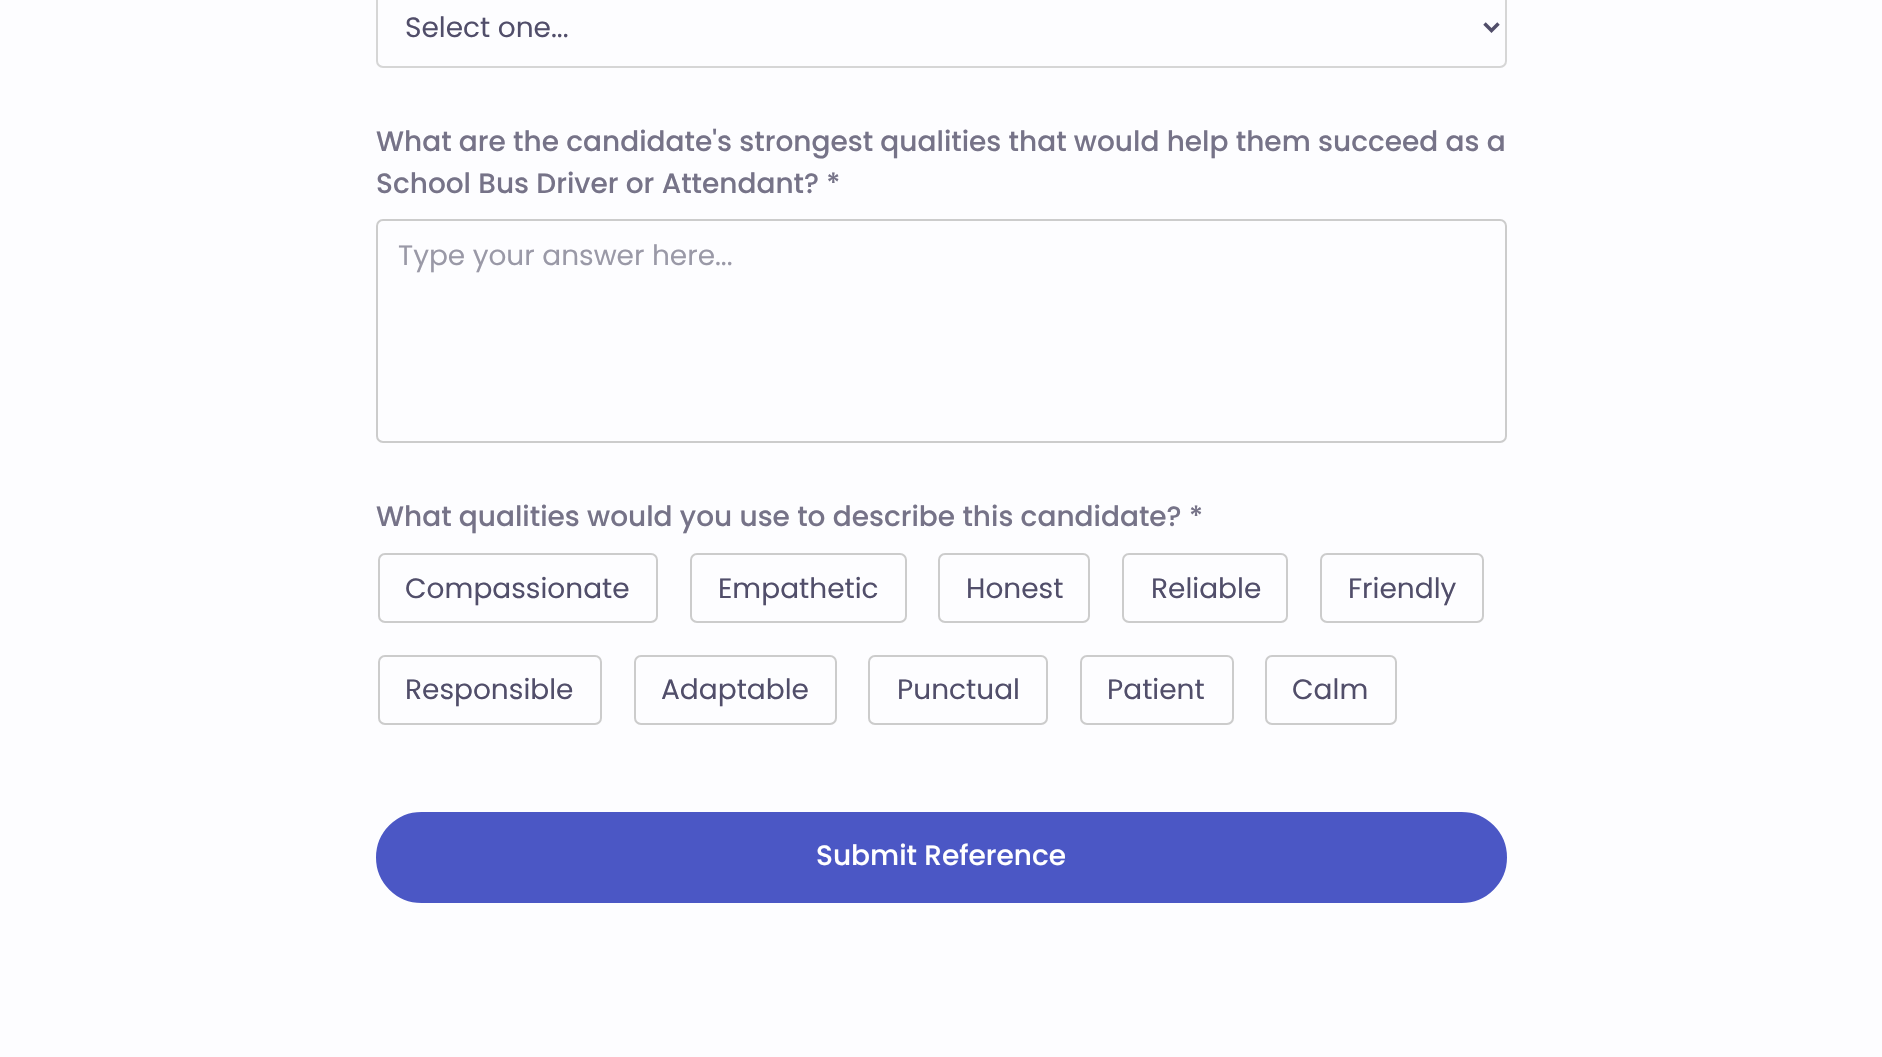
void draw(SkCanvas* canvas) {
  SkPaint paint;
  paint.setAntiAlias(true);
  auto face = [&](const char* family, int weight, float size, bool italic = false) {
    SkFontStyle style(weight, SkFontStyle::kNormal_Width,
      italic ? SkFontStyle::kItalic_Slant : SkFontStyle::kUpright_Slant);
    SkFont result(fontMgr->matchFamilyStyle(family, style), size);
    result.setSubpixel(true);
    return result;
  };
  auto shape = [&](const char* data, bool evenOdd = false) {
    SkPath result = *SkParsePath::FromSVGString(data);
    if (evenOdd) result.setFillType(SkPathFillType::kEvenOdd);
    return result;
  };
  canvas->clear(0xfffdfdff);
  paint.setStroke(true);
  paint.setStrokeWidth(2);
  paint.setColor(0xffd6d6d6);
  canvas->drawRoundRect(SkRect::MakeXYWH(377, -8, 1129, 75), 6, 6, paint);
  paint.setStrokeWidth(3.5f);
  paint.setColor(0xff514e6a);
  canvas->drawPath(shape("M1484.5 23.5L1491.5 30.5L1498.5 23.5"), paint);
  paint.setStrokeWidth(2);
  paint.setColor(0xffcccccc);
  canvas->drawRoundRect(SkRect::MakeXYWH(377, 220, 1129, 222), 6, 6, paint);
  canvas->drawRoundRect(SkRect::MakeXYWH(379, 554, 278, 68), 6, 6, paint);
  canvas->drawRoundRect(SkRect::MakeXYWH(691, 554, 215, 68), 6, 6, paint);
  canvas->drawRoundRect(SkRect::MakeXYWH(939, 554, 150, 68), 6, 6, paint);
  canvas->drawRoundRect(SkRect::MakeXYWH(1123, 554, 164, 68), 6, 6, paint);
  canvas->drawRoundRect(SkRect::MakeXYWH(1321, 554, 162, 68), 6, 6, paint);
  canvas->drawRoundRect(SkRect::MakeXYWH(379, 656, 222, 68), 6, 6, paint);
  canvas->drawRoundRect(SkRect::MakeXYWH(635, 656, 201, 68), 6, 6, paint);
  canvas->drawRoundRect(SkRect::MakeXYWH(869, 656, 178, 68), 6, 6, paint);
  canvas->drawRoundRect(SkRect::MakeXYWH(1081, 656, 152, 68), 6, 6, paint);
  canvas->drawRoundRect(SkRect::MakeXYWH(1266, 656, 130, 68), 6, 6, paint);
  paint.setStroke(false);
  paint.setColor(0xff4b57c5);
  canvas->drawRoundRect(SkRect::MakeXYWH(378, 814, 1127, 87), 43.5f, 43.5f, paint);
  paint.setStroke(true);
  paint.setStrokeWidth(4);
  canvas->drawRoundRect(SkRect::MakeXYWH(378, 814, 1127, 87), 43.5f, 43.5f, paint);
  auto f0 = face("Poppins", 400, 28);
  paint.setStroke(false);
  paint.setColor(0xff514e6a);
  canvas->drawString("Select one...", 405, 37, f0, paint);
  auto f1 = face("Poppins", 500, 28);
  paint.setColor(0xff767388);
  canvas->drawString("What are the candidate's strongest qualities that would help them succeed as a", 376, 151, f1, paint);
  canvas->drawString("School Bus Driver or Attendant? *", 376, 193, f1, paint);
  paint.setColor(0xff9a99a7);
  canvas->drawString("Type your answer here...", 398, 265, f0, paint);
  paint.setColor(0xff767388);
  canvas->drawString("What qualities would you use to describe this candidate? *", 376, 526, f1, paint);
  paint.setColor(0xff514e6a);
  {
    const struct { const char* s; float x, y; } items[] = {
      {"Compassionate", 405, 598},
      {"Empathetic", 718, 598},
      {"Honest", 966, 598},
      {"Reliable", 1151, 598},
      {"Friendly", 1348, 598},
      {"Responsible", 405, 699},
      {"Adaptable", 661, 699},
      {"Punctual", 897, 699},
      {"Patient", 1107, 699},
      {"Calm", 1292, 699},
    };
    for (auto [s, x, y] : items) {
      canvas->drawString(s, x, y, f0, paint);
    }
  }
  paint.setColor(0xffffffff);
  canvas->drawString("Submit Reference", 816, 865, f1, paint);
}
